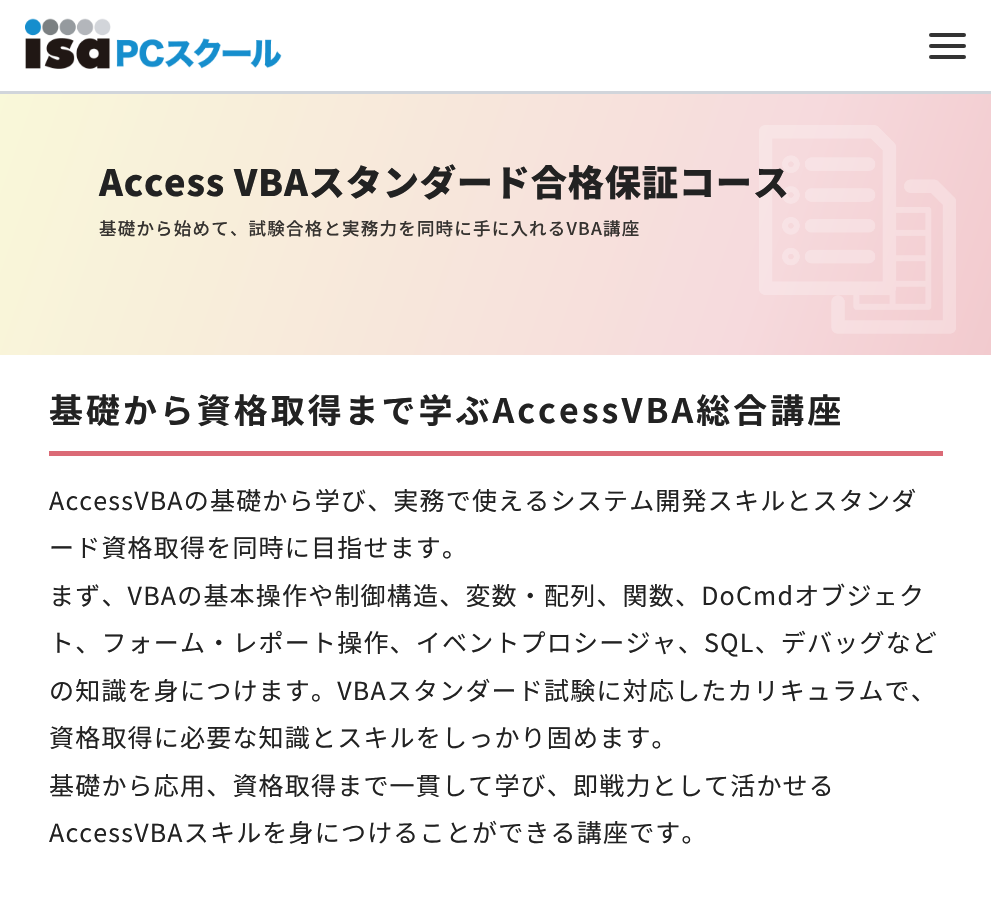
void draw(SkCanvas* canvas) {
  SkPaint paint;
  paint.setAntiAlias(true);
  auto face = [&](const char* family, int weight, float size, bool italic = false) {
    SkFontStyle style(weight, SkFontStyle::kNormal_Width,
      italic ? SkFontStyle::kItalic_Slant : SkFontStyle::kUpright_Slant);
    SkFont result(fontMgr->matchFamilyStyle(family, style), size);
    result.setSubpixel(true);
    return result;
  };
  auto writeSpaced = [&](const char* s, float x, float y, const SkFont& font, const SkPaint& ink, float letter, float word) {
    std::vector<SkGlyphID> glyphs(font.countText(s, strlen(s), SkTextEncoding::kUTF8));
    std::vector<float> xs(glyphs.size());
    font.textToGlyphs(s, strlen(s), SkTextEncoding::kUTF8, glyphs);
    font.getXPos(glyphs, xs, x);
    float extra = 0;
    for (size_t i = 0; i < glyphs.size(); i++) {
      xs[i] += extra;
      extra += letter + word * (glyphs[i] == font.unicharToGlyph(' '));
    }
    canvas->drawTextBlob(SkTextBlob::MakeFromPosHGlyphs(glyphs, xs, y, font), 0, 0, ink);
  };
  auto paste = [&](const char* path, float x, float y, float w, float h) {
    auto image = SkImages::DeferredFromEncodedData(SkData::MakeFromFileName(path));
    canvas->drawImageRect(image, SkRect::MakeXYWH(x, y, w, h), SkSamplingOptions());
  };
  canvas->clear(0xffffffff);
  paint.setColor(0xffd1d5db);
  canvas->drawRect(SkRect::MakeXYWH(0, 91, 991, 3), paint);
  paste("img/1.png", 25, 18, 257, 51);
  paint.setColor(0xff333333);
  canvas->drawRoundRect(SkRect::MakeXYWH(929, 33, 37, 4), 2, 2, paint);
  canvas->drawRoundRect(SkRect::MakeXYWH(929, 44, 37, 4), 2, 2, paint);
  canvas->drawRoundRect(SkRect::MakeXYWH(929, 55, 37, 4), 2, 2, paint);
  {
    const SkColor colors[] = {0xfff2cace, 0xfff6dadd, 0xfff9f8d9};
    const float stops[] = {0, 0.24f, 1};
    const SkPoint ends[] = {{981, 385}, {10, 47}};
    paint.setShader(SkGradientShader::MakeLinear(ends, colors, stops, 3, SkTileMode::kClamp));
    paint.setAlpha(255);
  }
  canvas->drawRect(SkRect::MakeXYWH(0, 94, 991, 261), paint);
  paste("img/2.png", 759, 125, 197, 209);
  paint.setShader(nullptr);
  paint.setColor(0xffdb6a76);
  canvas->drawRect(SkRect::MakeXYWH(49, 451, 894, 5), paint);
  auto f0 = face("Noto Sans JP", 900, 36.25f);
  paint.setColor(0xff222222);
  writeSpaced("Access VBAスタンダード合格保証コース", 99, 196, f0, paint, 0.75f, 0);
  auto f1 = face("Noto Sans JP", 500, 17.5f);
  paint.setColor(0xff363330);
  writeSpaced("基礎から始めて、試験合格と実務力を同時に手に入れるVBA講座", 99, 235, f1, paint, 1.2f, 0);
  auto f2 = face("Noto Sans JP", 700, 33.9f);
  paint.setColor(0xff222222);
  writeSpaced("基礎から資格取得まで学ぶAccessVBA総合講座", 49, 423, f2, paint, 3.05f, 0);
  auto f3 = face("Noto Sans JP", 400, 25);
  {
    const struct { const char* s; float x, y; } items[] = {
      {"AccessVBAの基礎から学び、実務で使えるシステム開発スキルとスタンダ", 49, 510},
      {"ード資格取得を同時に目指せます。", 49, 557},
      {"まず、VBAの基本操作や制御構造、変数・配列、関数、DoCmdオブジェク", 49, 605},
      {"ト、フォーム・レポート操作、イベントプロシージャ、SQL、デバッグなど", 49, 652},
      {"の知識を身につけます。VBAスタンダード試験に対応したカリキュラムで、", 49, 700},
      {"資格取得に必要な知識とスキルをしっかり固めます。", 49, 747},
      {"基礎から応用、資格取得まで一貫して学び、即戦力として活かせる", 49, 795},
      {"AccessVBAスキルを身につけることができる講座です。", 49, 842},
    };
    for (auto [s, x, y] : items) {
      writeSpaced(s, x, y, f3, paint, 1.2f, 0);
    }
  }
}
